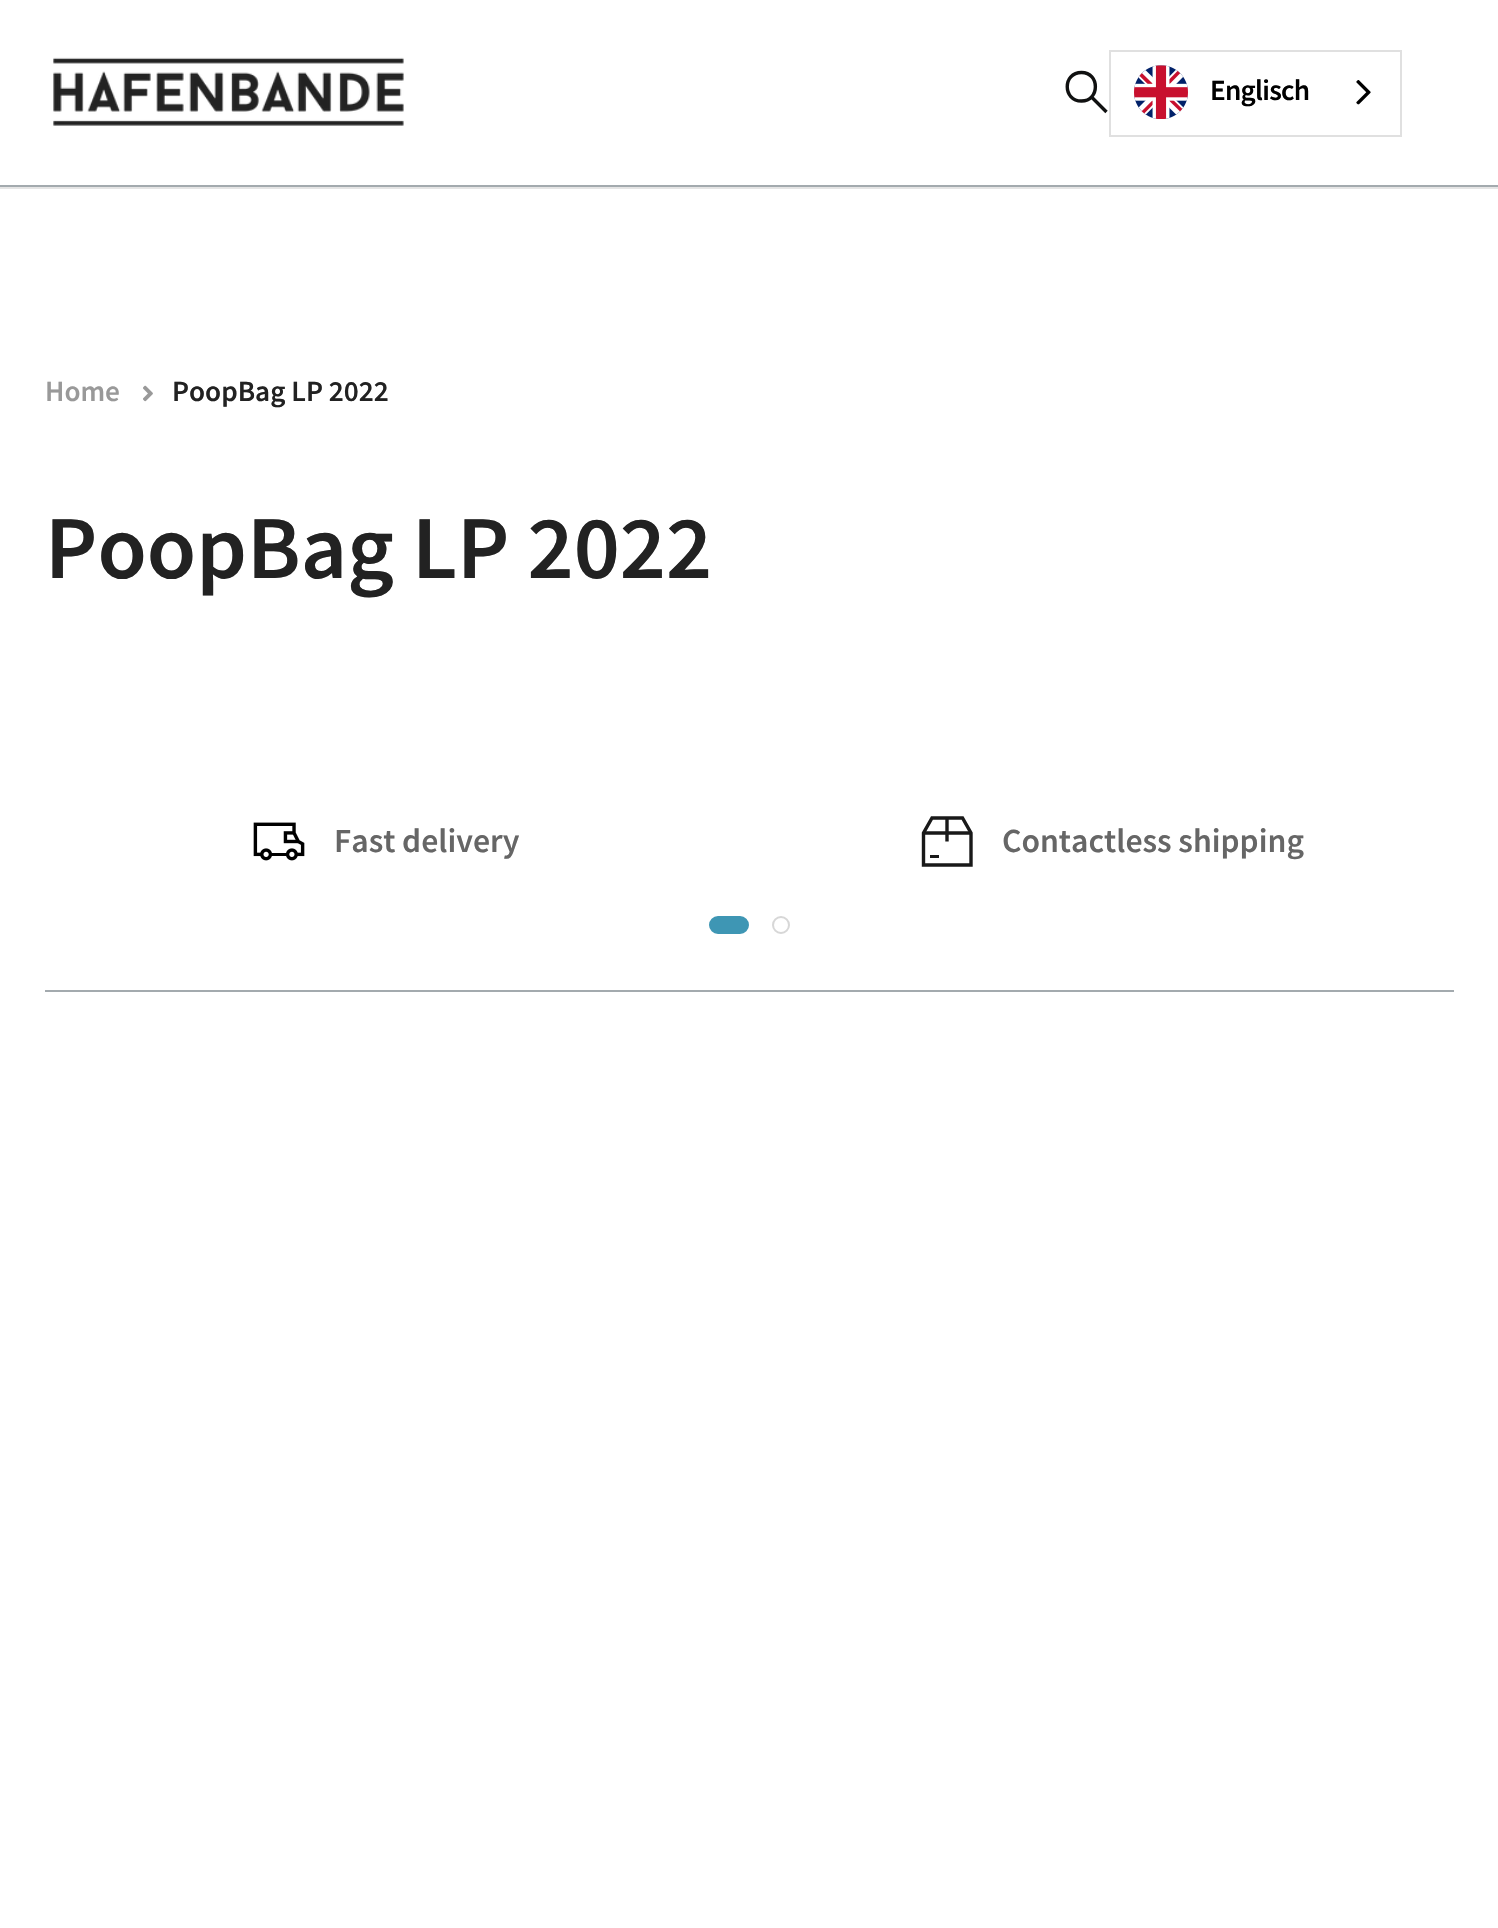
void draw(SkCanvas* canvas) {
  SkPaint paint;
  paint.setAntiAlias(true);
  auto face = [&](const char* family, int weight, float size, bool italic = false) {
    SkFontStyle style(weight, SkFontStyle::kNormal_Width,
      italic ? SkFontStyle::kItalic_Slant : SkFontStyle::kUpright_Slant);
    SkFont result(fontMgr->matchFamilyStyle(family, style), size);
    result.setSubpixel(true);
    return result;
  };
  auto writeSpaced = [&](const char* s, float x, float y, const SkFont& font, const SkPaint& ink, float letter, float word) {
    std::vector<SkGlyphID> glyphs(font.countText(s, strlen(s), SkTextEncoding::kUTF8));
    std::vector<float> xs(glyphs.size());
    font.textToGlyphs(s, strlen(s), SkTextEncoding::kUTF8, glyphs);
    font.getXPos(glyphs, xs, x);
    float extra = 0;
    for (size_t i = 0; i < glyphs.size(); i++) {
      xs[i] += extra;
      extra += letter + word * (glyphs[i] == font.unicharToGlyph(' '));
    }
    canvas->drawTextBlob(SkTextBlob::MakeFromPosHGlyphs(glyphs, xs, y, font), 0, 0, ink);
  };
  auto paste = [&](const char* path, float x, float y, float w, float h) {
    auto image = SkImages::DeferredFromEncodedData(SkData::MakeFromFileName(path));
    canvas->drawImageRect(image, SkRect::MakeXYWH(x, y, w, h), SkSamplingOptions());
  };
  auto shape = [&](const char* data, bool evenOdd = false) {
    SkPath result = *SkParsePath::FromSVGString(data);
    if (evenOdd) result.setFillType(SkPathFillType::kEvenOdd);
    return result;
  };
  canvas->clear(0xffffffff);
  paint.setColor(0xffe5e5e5);
  canvas->drawRect(SkRect::MakeXYWH(0, 187, 1498, 2), paint);
  paste("img/1.png", 53, 57, 351, 69);
  paint.setStroke(true);
  paint.setStrokeWidth(3.4f);
  paint.setColor(0xff101111);
  canvas->drawPath(shape("M1081.5 101C1100 101 1100 72.5 1081.5 72.5C1062.5 72.5 1062.5 101 1081.5 101ZM1106.5 112L1091 96.5"), paint);
  paint.setStrokeWidth(2);
  paint.setColor(0xffe0e0e0);
  canvas->drawRect(SkRect::MakeXYWH(1110, 51, 291, 85), paint);
  paste("img/2.png", 1134, 65, 54, 54);
  paste("img/3.png", 1356, 80, 15, 25);
  paint.setStroke(false);
  paint.setColor(0xffa3aaae);
  canvas->drawRect(SkRect::MakeXYWH(0, 185, 1498, 2), paint);
  paste("img/4.png", 143, 385, 10, 17);
  paste("img/5.png", 253, 822, 52, 39);
  paint.setStroke(true);
  paint.setStrokeWidth(3.4f);
  paint.setColor(0xff191919);
  canvas->drawPath(shape("M962.5 818H932L923.5 833V865H971V833Z"), paint);
  canvas->drawPath(shape("M947 818V841.5M923.5 833H971"), paint);
  paint.setStroke(false);
  canvas->drawRect(SkRect::MakeXYWH(930, 855, 9, 3), paint);
  paint.setColor(0xff3e96b4);
  canvas->drawRoundRect(SkRect::MakeXYWH(710, 917, 38, 16), 8, 8, paint);
  paint.setStroke(true);
  paint.setStrokeWidth(2);
  canvas->drawRoundRect(SkRect::MakeXYWH(710, 917, 38, 16), 8, 8, paint);
  paint.setColor(0xffd7d7d7);
  canvas->drawCircle(781, 925, 8, paint);
  paint.setStroke(false);
  paint.setColor(0xffa3aaae);
  canvas->drawRect(SkRect::MakeXYWH(45, 990, 1409, 2), paint);
  auto f0 = face("Source Sans Pro", 600, 29.25f);
  paint.setColor(0xff000000);
  writeSpaced("Englisch", 1210, 100, f0, paint, -0.75f, 0);
  paint.setColor(0xff999999);
  canvas->drawString("Home", 45, 401, f0, paint);
  paint.setColor(0xff222222);
  canvas->drawString("PoopBag LP 2022", 172, 401, f0, paint);
  auto f1 = face("Source Sans Pro", 600, 90);
  canvas->drawString("PoopBag LP 2022", 45, 578, f1, paint);
  auto f2 = face("Source Sans Pro", 600, 33.75f);
  paint.setColor(0xff666666);
  canvas->drawString("Fast delivery", 334, 852, f2, paint);
  canvas->drawString("Contactless shipping", 1002, 852, f2, paint);
}
